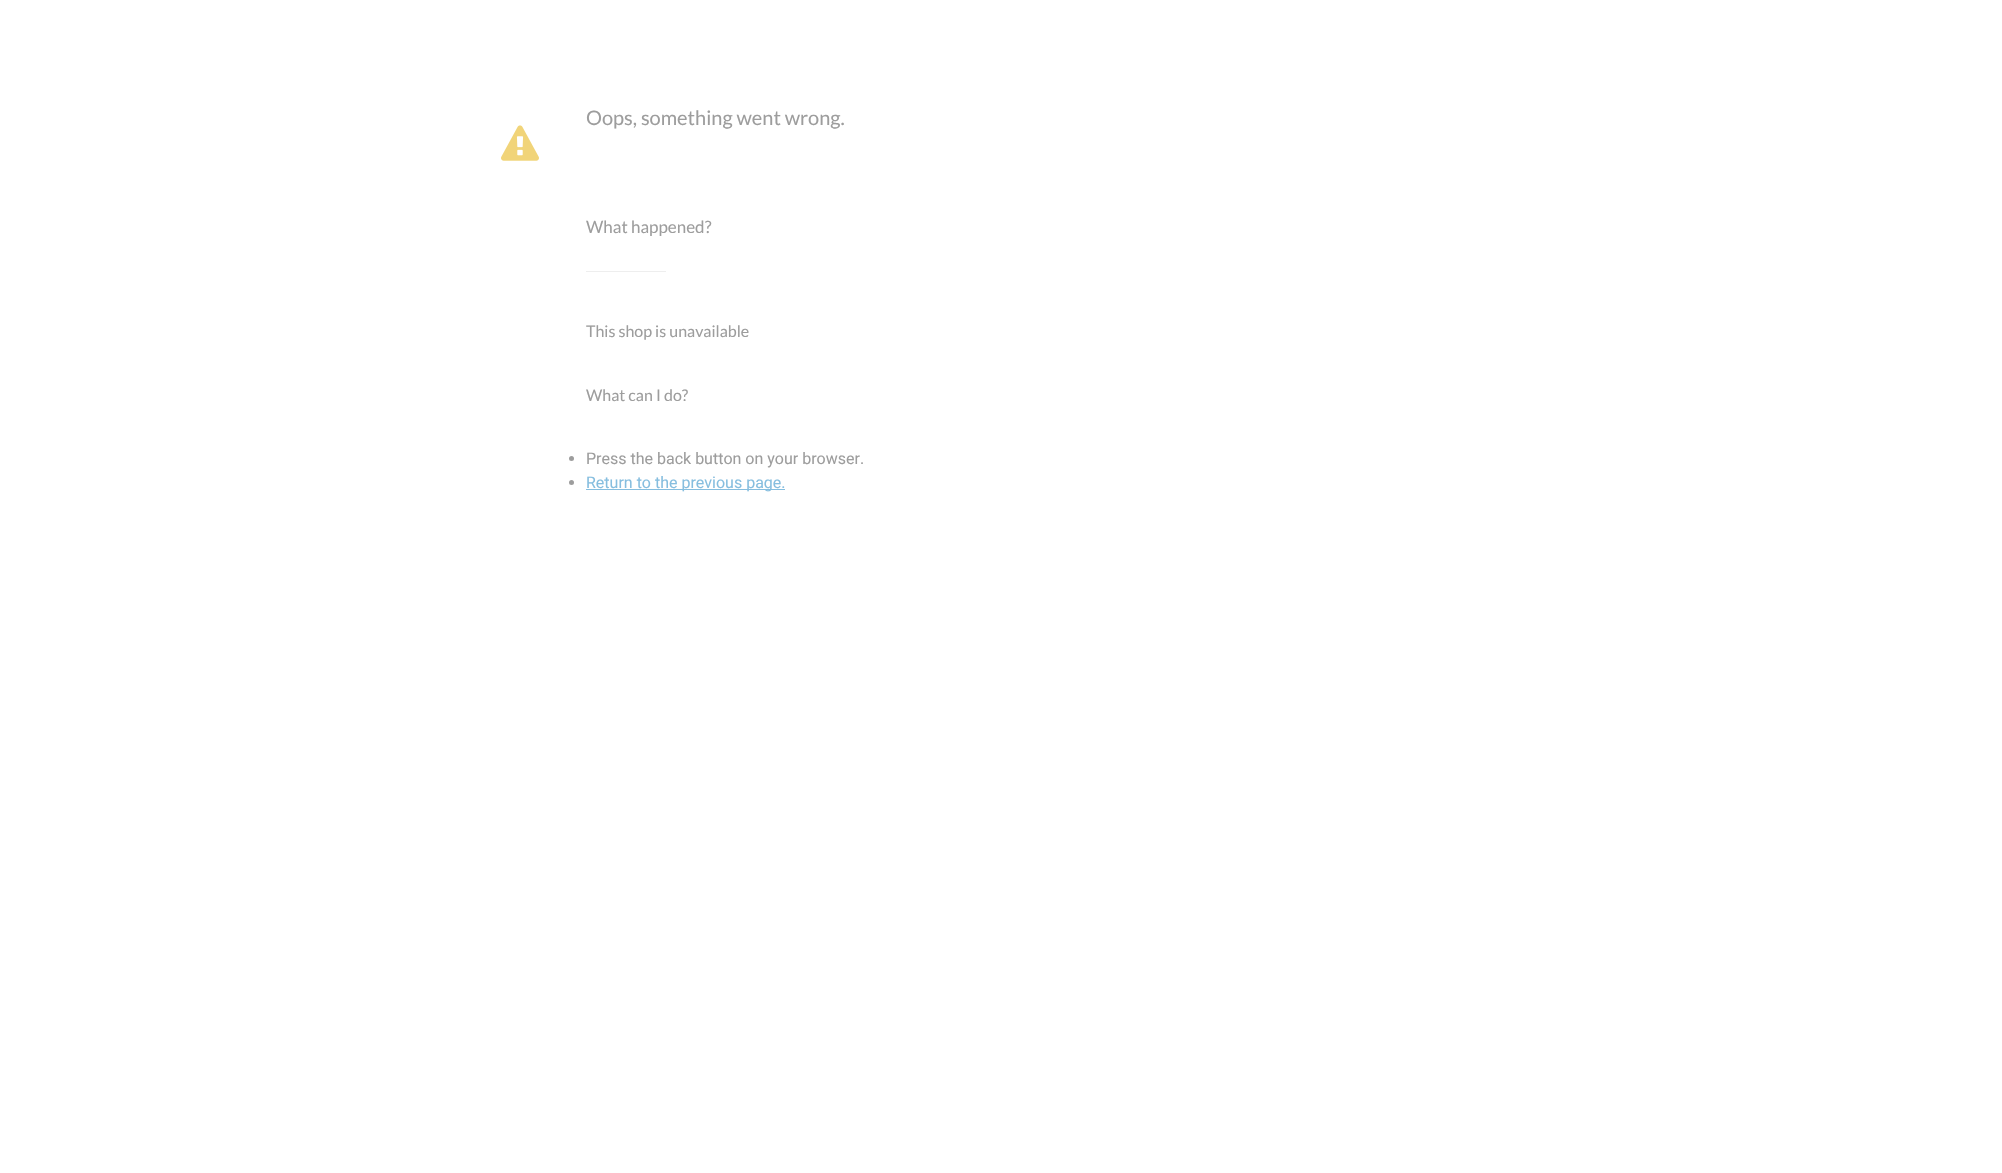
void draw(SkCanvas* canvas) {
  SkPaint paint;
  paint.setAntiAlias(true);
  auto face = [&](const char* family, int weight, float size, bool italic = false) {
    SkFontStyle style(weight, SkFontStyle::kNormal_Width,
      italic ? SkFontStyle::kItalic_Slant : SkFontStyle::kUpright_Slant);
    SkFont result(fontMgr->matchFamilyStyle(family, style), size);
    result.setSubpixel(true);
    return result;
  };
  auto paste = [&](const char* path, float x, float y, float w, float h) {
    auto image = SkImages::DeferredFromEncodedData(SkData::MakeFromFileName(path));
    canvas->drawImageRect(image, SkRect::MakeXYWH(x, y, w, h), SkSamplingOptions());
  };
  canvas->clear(0xffffffff);
  paste("img/1.png", 501, 125, 38, 36);
  paint.setColor(0xffeeeeee);
  canvas->drawRect(SkRect::MakeXYWH(586, 271, 80, 1), paint);
  paint.setColor(0xff9d9d9d);
  canvas->drawCircle(571.5f, 458.5f, 2.5f, paint);
  canvas->drawCircle(571.5f, 482.5f, 2.5f, paint);
  paint.setColor(0xff86bedf);
  canvas->drawRect(SkRect::MakeXYWH(586, 489, 199, 1), paint);
  auto f0 = face("Lato", 400, 20);
  paint.setColor(0xff9d9d9d);
  canvas->drawString("Oops, something went wrong.", 586, 125, f0, paint);
  auto f1 = face("Lato", 400, 17);
  canvas->drawString("What happened?", 586, 233, f1, paint);
  auto f2 = face("Lato", 400, 16);
  canvas->drawString("This shop is unavailable", 586, 337, f2, paint);
  canvas->drawString("What can I do?", 586, 401, f2, paint);
  auto f3 = face("Roboto", 400, 16);
  canvas->drawString("Press the back button on your browser.", 586, 464, f3, paint);
  paint.setColor(0xff86bedf);
  canvas->drawString("Return to the previous page.", 586, 488, f3, paint);
}
